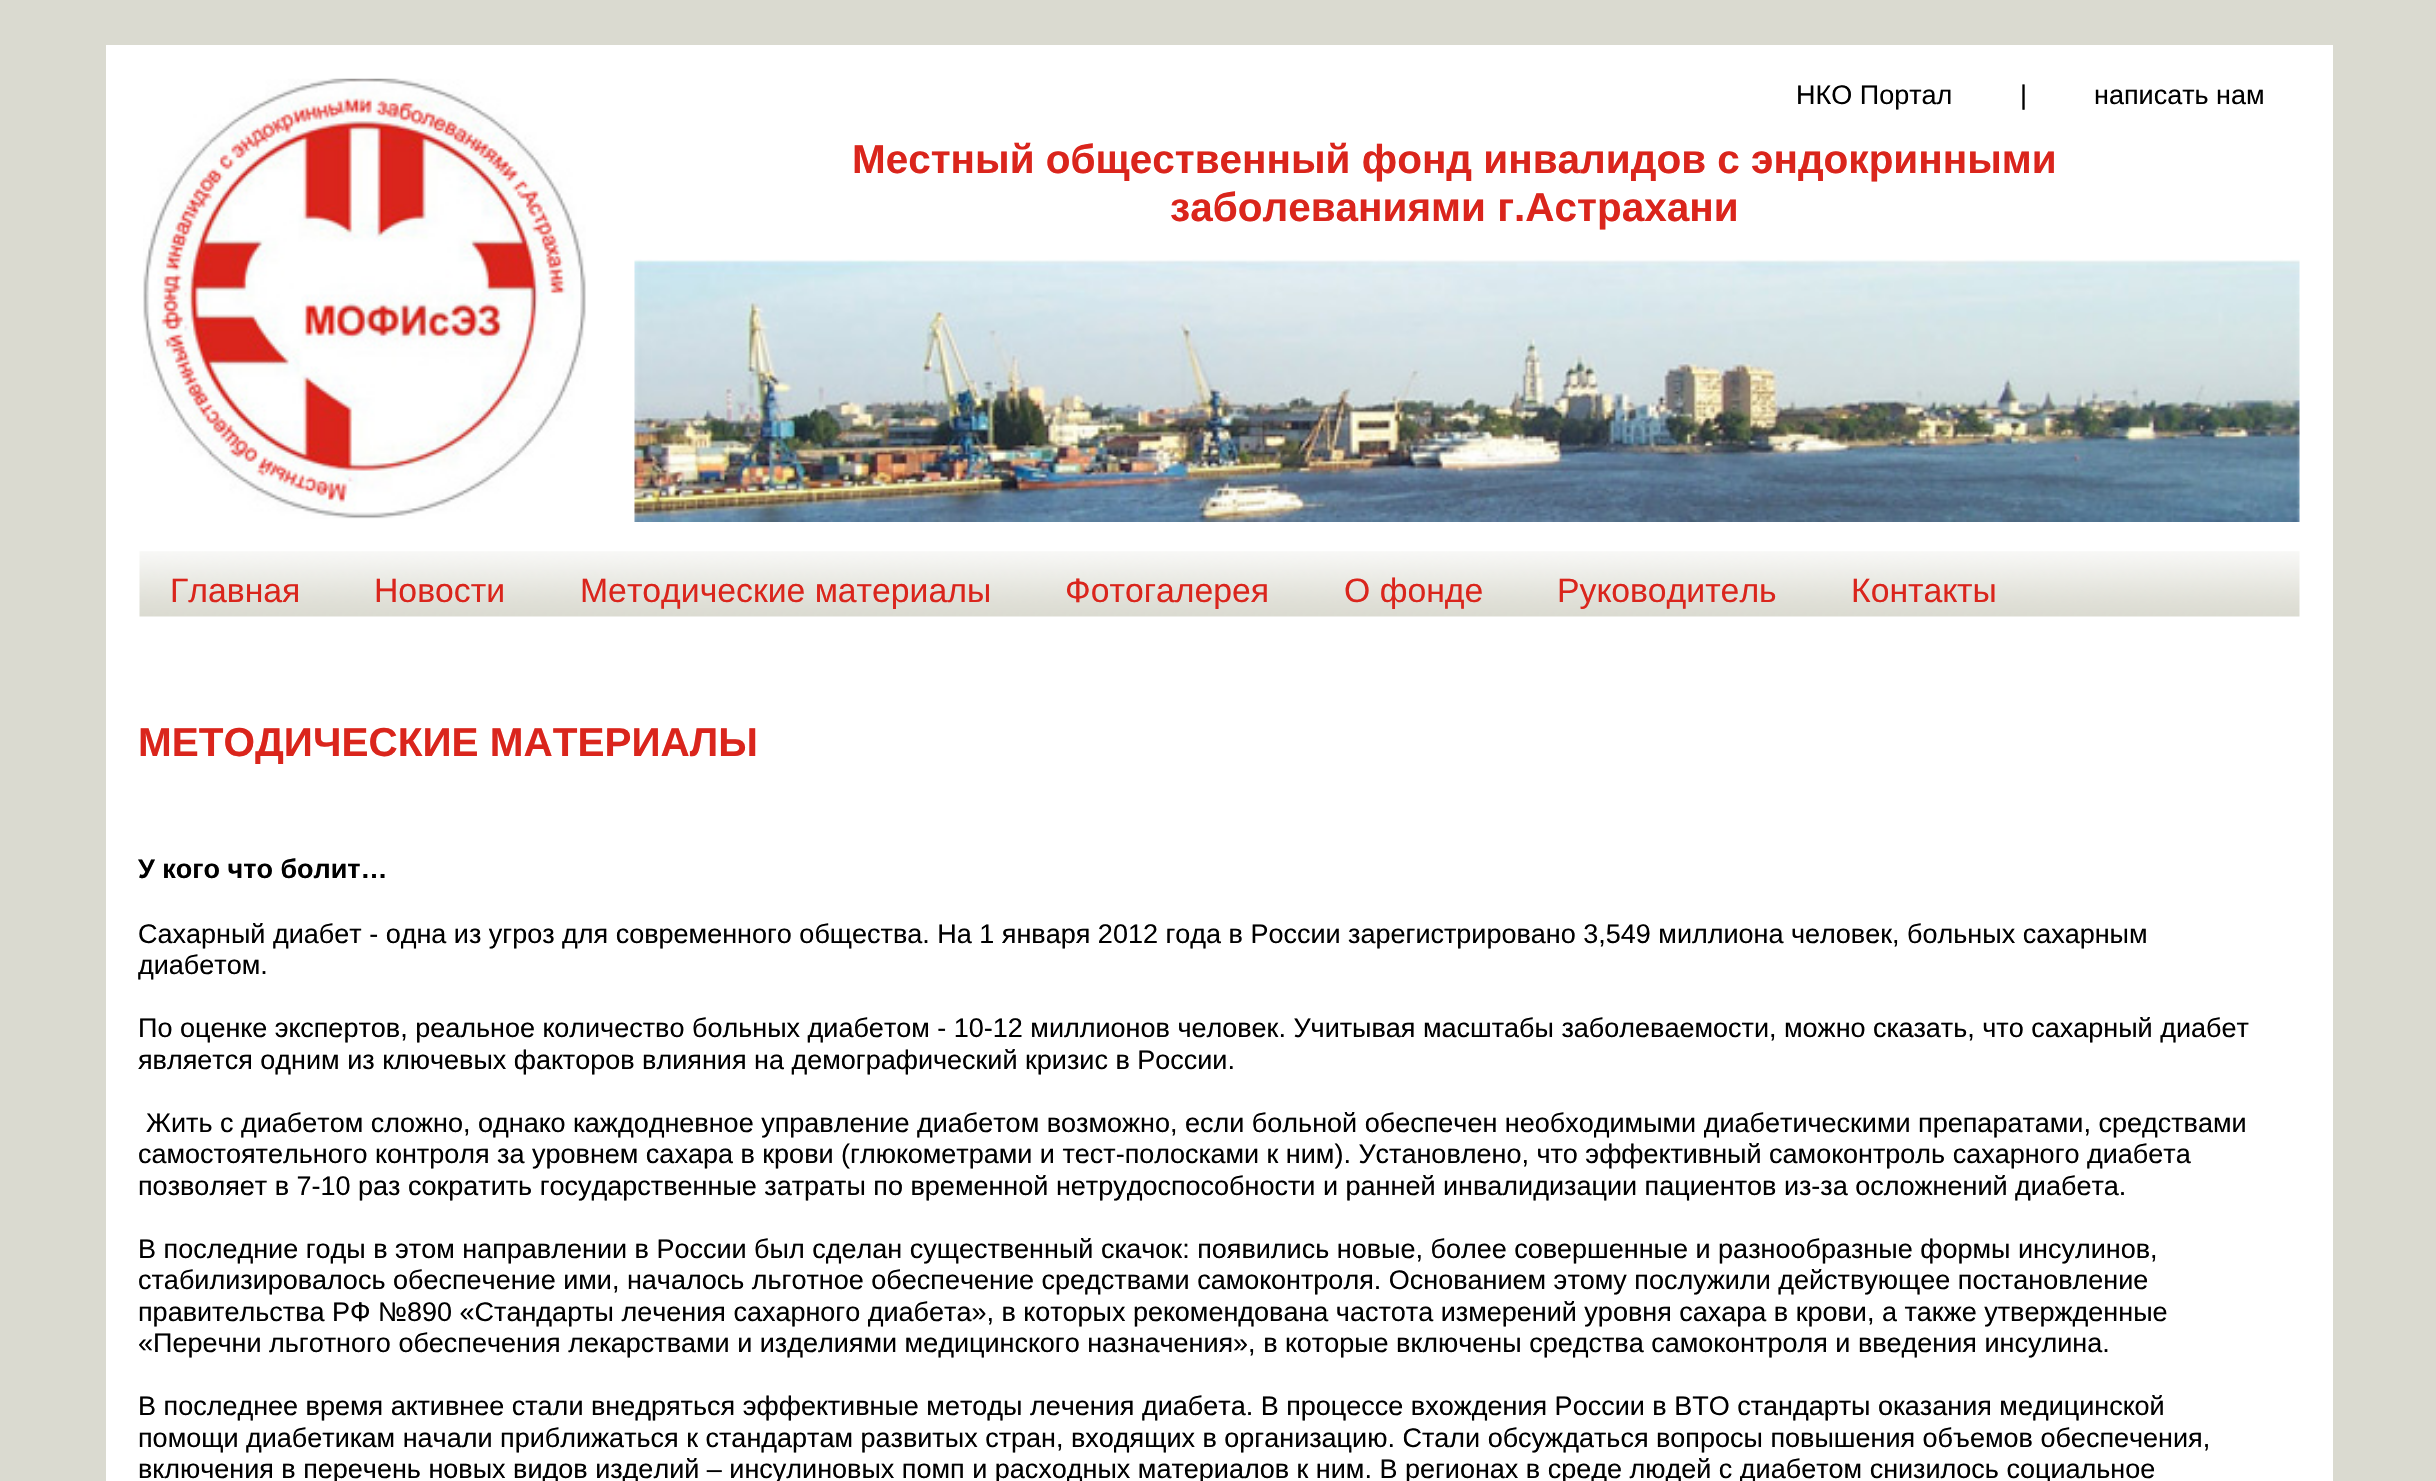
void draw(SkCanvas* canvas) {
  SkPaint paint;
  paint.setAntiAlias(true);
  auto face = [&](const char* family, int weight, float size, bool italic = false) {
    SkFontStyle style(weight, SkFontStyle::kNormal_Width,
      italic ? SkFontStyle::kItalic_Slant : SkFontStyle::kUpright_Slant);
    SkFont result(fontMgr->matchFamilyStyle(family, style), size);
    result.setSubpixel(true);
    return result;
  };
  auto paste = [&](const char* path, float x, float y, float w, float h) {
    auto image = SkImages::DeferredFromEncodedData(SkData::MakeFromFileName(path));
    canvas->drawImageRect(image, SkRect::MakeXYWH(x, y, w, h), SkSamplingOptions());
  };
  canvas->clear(0xffdadad0);
  paint.setColor(0xffffffff);
  canvas->drawRect(SkRect::MakeXYWH(106, 45, 2227, 1436), paint);
  paste("img/1.png", 143, 78, 443, 441);
  paste("img/2.png", 634, 259, 1666, 263);
  paste("img/3.png", 139, 551, 2161, 66);
  auto f0 = face("Liberation Sans", 400, 27);
  paint.setColor(0xff000000);
  {
    const struct { const char* s; float x, y; } items[] = {
      {"НКО Портал", 1796, 104},
      {"|", 2020, 104},
      {"написать нам", 2094, 104},
    };
    for (auto [s, x, y] : items) {
      canvas->drawString(s, x, y, f0, paint);
    }
  }
  auto f1 = face("Liberation Sans", 700, 40.5f);
  paint.setColor(0xffda251c);
  canvas->drawString("Местный общественный фонд инвалидов с эндокринными", 852, 173, f1, paint);
  canvas->drawString("заболеваниями г.Астрахани", 1170, 221, f1, paint);
  auto f2 = face("Liberation Sans", 400, 33.75f);
  {
    const struct { const char* s; float x, y; } items[] = {
      {"Главная", 170, 602},
      {"Новости", 374, 602},
      {"Методические материалы", 580, 602},
      {"Фотогалерея", 1065, 602},
      {"О фонде", 1344, 602},
      {"Руководитель", 1557, 602},
      {"Контакты", 1851, 602},
    };
    for (auto [s, x, y] : items) {
      canvas->drawString(s, x, y, f2, paint);
    }
  }
  canvas->drawString("МЕТОДИЧЕСКИЕ МАТЕРИАЛЫ", 138, 756, f1, paint);
  auto f3 = face("Liberation Sans", 700, 27);
  paint.setColor(0xff000000);
  canvas->drawString("У кого что болит…", 138, 878, f3, paint);
  {
    const struct { const char* s; float x, y; } items[] = {
      {"Сахарный диабет - одна из угроз для современного общества. На 1 января 2012 года в России зарегистрировано 3,549 миллиона человек, больных сахарным", 138, 943},
      {"диабетом.", 138, 974},
      {"По оценке экспертов, реальное количество больных диабетом - 10-12 миллионов человек. Учитывая масштабы заболеваемости, можно сказать, что сахарный диабет", 138, 1037},
      {"является одним из ключевых факторов влияния на демографический кризис в России.", 138, 1069},
      {"Жить с диабетом сложно, однако каждодневное управление диабетом возможно, если больной обеспечен необходимыми диабетическими препаратами, средствами", 146, 1132},
      {"самостоятельного контроля за уровнем сахара в крови (глюкометрами и тест-полосками к ним). Установлено, что эффективный самоконтроль сахарного диабета", 138, 1163},
      {"позволяет в 7-10 раз сократить государственные затраты по временной нетрудоспособности и ранней инвалидизации пациентов из-за осложнений диабета.", 138, 1195},
      {"В последние годы в этом направлении в России был сделан существенный скачок: появились новые, более совершенные и разнообразные формы инсулинов,", 138, 1258},
      {"стабилизировалось обеспечение ими, началось льготное обеспечение средствами самоконтроля. Основанием этому послужили действующее постановление", 138, 1289},
      {"правительства РФ №890 «Стандарты лечения сахарного диабета», в которых рекомендована частота измерений уровня сахара в крови, а также утвержденные", 138, 1321},
      {"«Перечни льготного обеспечения лекарствами и изделиями медицинского назначения», в которые включены средства самоконтроля и введения инсулина.", 138, 1352},
      {"В последнее время активнее стали внедряться эффективные методы лечения диабета. В процессе вхождения России в ВТО стандарты оказания медицинской", 138, 1415},
      {"помощи диабетикам начали приближаться к стандартам развитых стран, входящих в организацию. Стали обсуждаться вопросы повышения объемов обеспечения,", 138, 1447},
      {"включения в перечень новых видов изделий – инсулиновых помп и расходных материалов к ним. В регионах в среде людей с диабетом снизилось социальное", 138, 1478},
    };
    for (auto [s, x, y] : items) {
      canvas->drawString(s, x, y, f0, paint);
    }
  }
}
